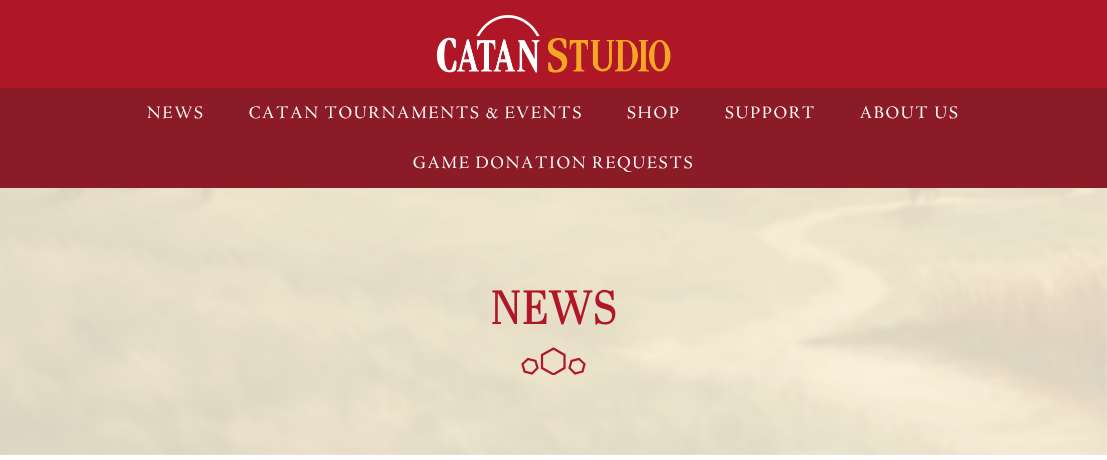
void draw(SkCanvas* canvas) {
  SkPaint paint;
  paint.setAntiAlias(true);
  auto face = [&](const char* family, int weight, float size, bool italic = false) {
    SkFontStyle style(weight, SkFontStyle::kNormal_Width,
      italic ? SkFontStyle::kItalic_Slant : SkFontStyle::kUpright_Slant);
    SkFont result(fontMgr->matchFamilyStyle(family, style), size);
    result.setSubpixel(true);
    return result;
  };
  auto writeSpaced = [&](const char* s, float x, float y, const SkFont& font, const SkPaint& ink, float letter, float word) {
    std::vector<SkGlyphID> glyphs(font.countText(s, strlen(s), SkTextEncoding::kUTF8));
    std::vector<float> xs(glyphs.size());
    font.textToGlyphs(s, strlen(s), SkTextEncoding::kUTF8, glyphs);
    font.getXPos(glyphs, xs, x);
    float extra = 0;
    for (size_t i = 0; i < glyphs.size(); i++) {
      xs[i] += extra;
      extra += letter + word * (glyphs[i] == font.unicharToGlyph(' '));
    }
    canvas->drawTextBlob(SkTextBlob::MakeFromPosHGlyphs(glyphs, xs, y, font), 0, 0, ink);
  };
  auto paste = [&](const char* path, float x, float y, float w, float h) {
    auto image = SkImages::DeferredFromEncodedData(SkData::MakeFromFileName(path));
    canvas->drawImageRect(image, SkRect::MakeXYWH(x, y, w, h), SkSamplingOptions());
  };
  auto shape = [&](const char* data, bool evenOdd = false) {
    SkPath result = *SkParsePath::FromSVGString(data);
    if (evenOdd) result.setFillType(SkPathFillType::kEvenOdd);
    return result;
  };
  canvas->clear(0xffffffff);
  paint.setColor(0xffaf1726);
  canvas->drawRect(SkRect::MakeXYWH(0, 0, 1107, 88), paint);
  paste("img/1.png", 436, 15, 235, 58);
  paint.setColor(0xff8b1b26);
  canvas->drawRect(SkRect::MakeXYWH(0, 88, 1107, 100), paint);
  paste("img/2.png", 0, 188, 1107, 267);
  paste("img/3.png", 492, 289, 124, 36);
  canvas->save();
  canvas->clipRect(SkRect::MakeXYWH(521, 347, 65, 28));
  paint.setStroke(true);
  paint.setStrokeWidth(2.2f);
  paint.setColor(0xffaf1726);
  canvas->drawPath(shape("M564.5 368L553.5 374.5L542 368V355L553.5 348.5L564.5 355Z"), paint);
  canvas->restore();
  canvas->drawPath(shape("M582.5 371.5L575 373.5L569.5 368L571.5 361L579 359L584.5 364Z"), paint);
  canvas->drawPath(shape("M535.5 361L537.5 368L532 373.5L524.5 371.5L522.5 364L528 359Z"), paint);
  auto f0 = face("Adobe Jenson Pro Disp", 400, 18);
  paint.setStroke(false);
  paint.setColor(0xffffffff);
  {
    const struct { const char* s; float x, y; } items[] = {
      {"NEWS", 147, 118},
      {"CATAN TOURNAMENTS & EVENTS", 249, 118},
      {"SHOP", 627, 118},
      {"SUPPORT", 725, 118},
      {"ABOUT US", 860, 118},
      {"GAME DONATION REQUESTS", 413, 168},
    };
    for (auto [s, x, y] : items) {
      writeSpaced(s, x, y, f0, paint, 2, 0);
    }
  }
}
